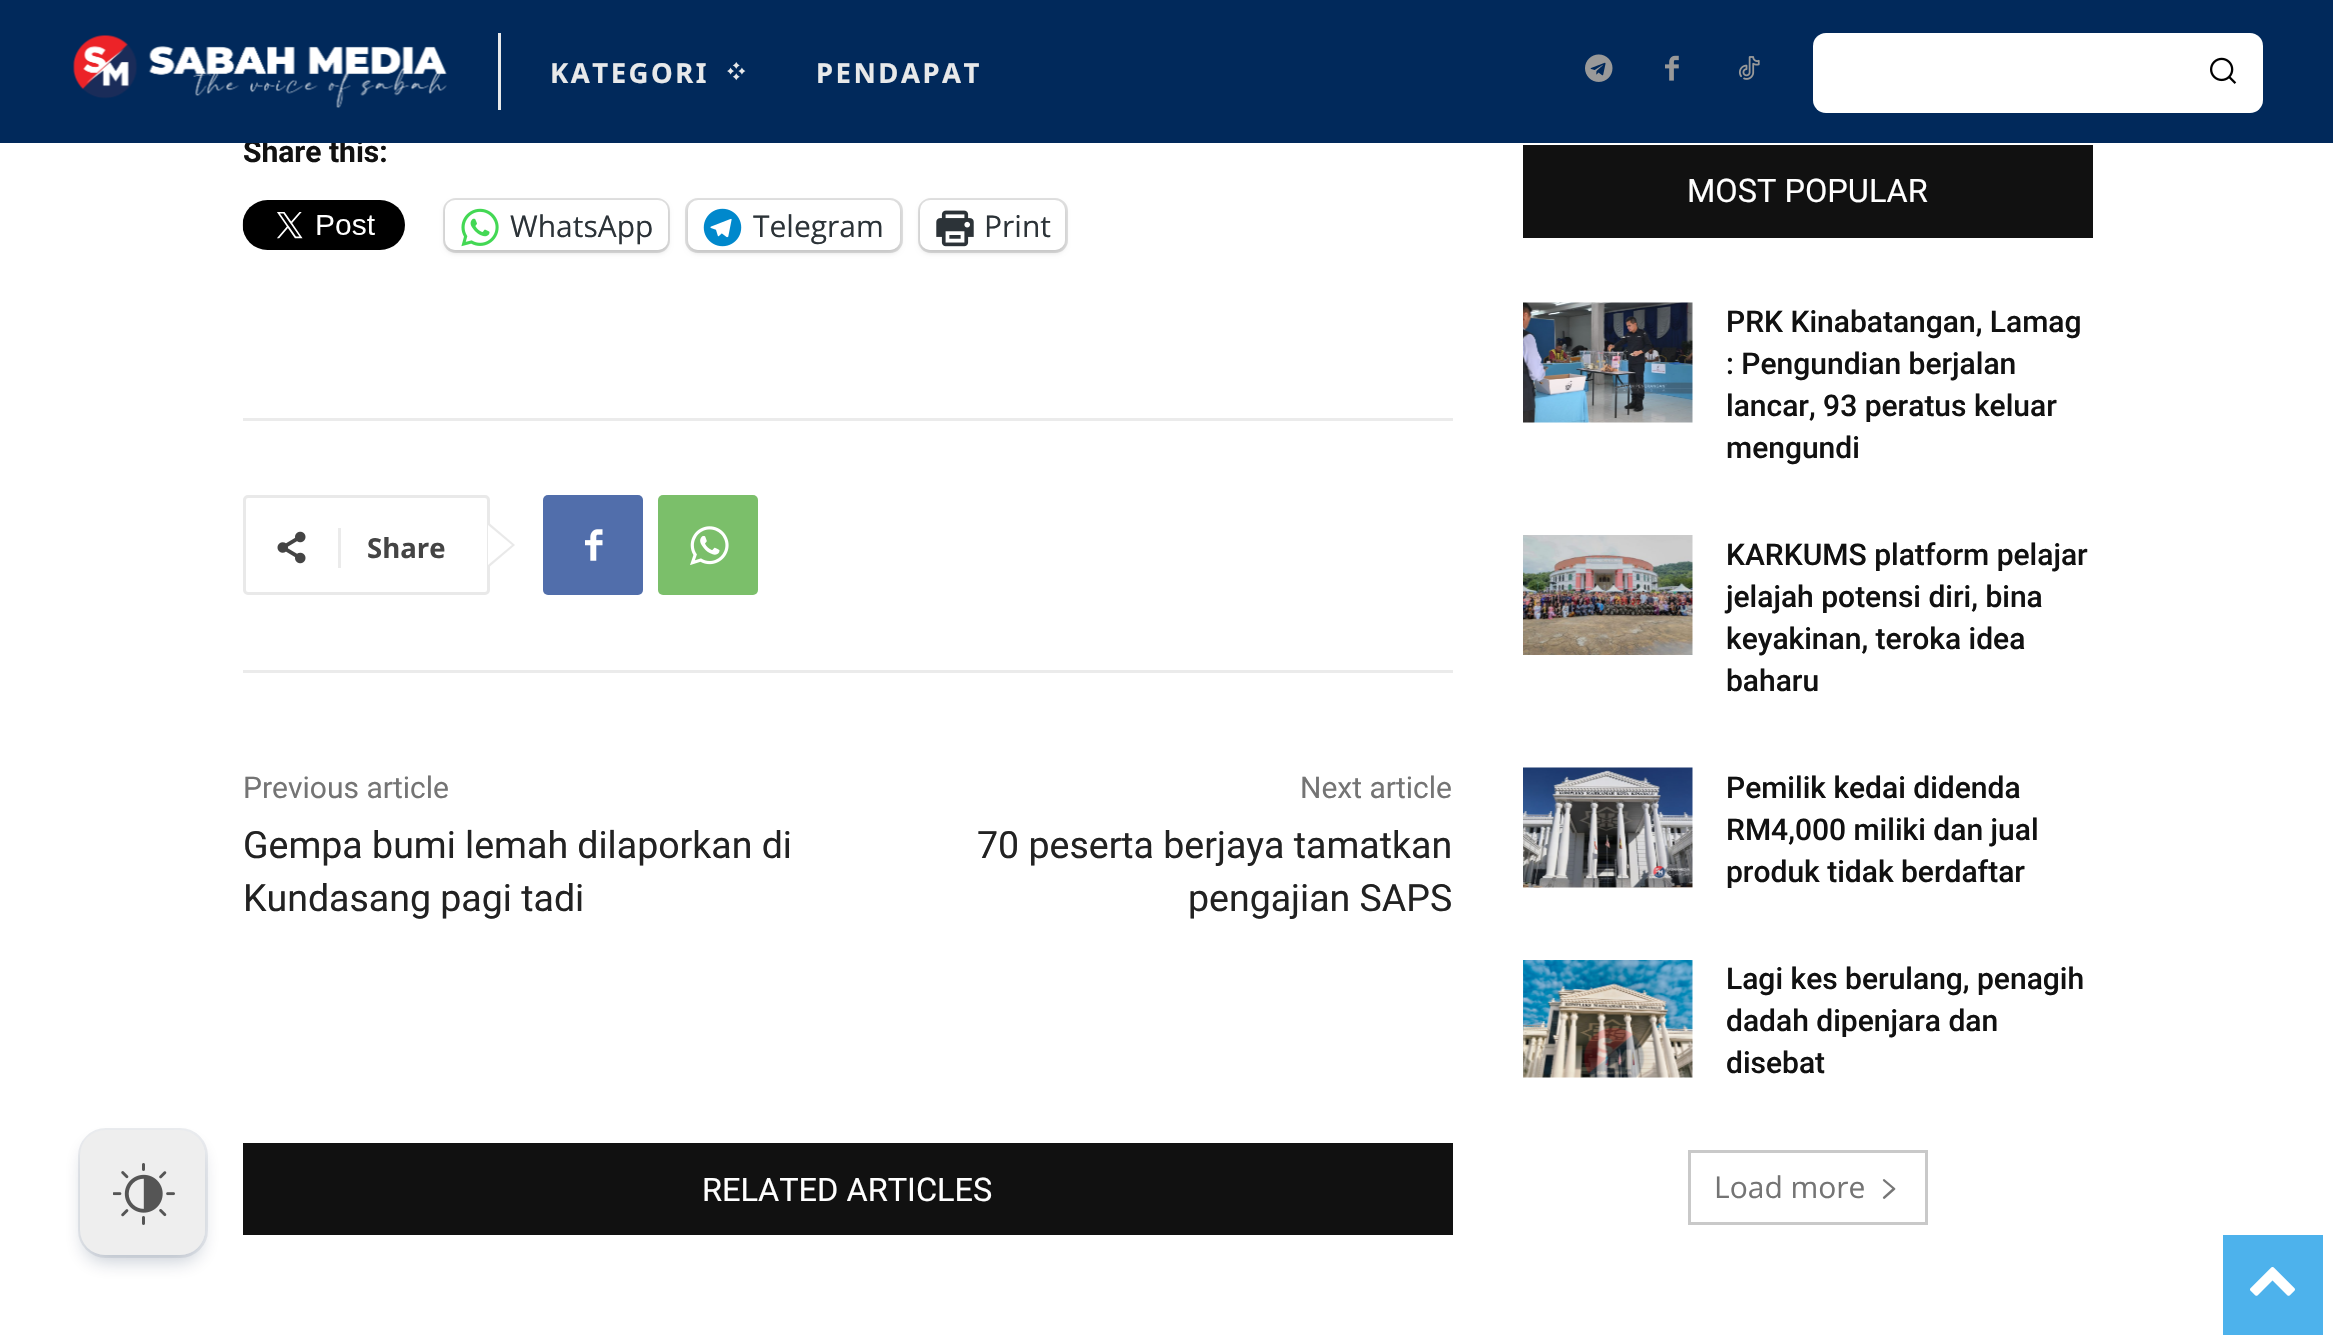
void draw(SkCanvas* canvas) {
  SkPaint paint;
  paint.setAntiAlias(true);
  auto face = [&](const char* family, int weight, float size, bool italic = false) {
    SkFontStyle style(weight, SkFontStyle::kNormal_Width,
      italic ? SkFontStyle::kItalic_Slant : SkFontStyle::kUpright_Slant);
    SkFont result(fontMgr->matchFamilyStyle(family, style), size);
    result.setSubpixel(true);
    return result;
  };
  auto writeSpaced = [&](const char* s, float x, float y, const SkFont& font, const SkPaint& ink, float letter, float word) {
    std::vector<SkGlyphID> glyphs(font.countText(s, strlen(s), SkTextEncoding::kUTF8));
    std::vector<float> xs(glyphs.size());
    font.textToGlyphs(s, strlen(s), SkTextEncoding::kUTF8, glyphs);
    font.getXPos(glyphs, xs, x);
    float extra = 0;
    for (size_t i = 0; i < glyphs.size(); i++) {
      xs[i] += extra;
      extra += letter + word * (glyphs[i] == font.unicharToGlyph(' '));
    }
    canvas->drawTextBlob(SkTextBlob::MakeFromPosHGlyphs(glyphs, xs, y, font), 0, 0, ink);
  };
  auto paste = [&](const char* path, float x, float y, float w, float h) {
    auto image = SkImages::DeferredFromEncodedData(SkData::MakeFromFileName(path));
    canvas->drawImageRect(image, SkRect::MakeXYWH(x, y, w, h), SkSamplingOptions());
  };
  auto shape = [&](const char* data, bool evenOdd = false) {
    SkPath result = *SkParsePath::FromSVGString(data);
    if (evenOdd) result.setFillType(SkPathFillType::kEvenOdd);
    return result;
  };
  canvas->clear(0xffffffff);
  paint.setStroke(true);
  paint.setStrokeWidth(3);
  paint.setColor(0xffebedf0);
  canvas->drawRoundRect(SkRect::MakeXYWH(79.5f, 1129.5f, 127, 127), 26.5f, 26.5f, paint);
  paint.setStroke(false);
  paint.setColor(0x40091e42);
  paint.setMaskFilter(SkMaskFilter::MakeBlur(kNormal_SkBlurStyle, 10));
  canvas->drawRoundRect(SkRect::MakeXYWH(85, 1145, 115, 115), 20, 20, paint);
  paint.setMaskFilter(nullptr);
  paint.setColor(0xffeeeeee);
  canvas->drawRoundRect(SkRect::MakeXYWH(80, 1130, 125, 125), 25, 25, paint);
  paste("img/1.png", 113, 1163, 62, 62);
  paste("img/8.png", 242, 200, 163, 50);
  paint.setStroke(true);
  paint.setColor(0xffe0e0e0);
  canvas->drawRoundRect(SkRect::MakeXYWH(444.5f, 199.5f, 224, 52), 11.5f, 11.5f, paint);
  paint.setStroke(false);
  paint.setColor(0x1f000000);
  paint.setMaskFilter(SkMaskFilter::MakeBlur(kNormal_SkBlurStyle, 2.5f));
  canvas->drawRoundRect(SkRect::MakeXYWH(445, 203, 223, 50), 10, 10, paint);
  paint.setMaskFilter(nullptr);
  paint.setColor(0xffffffff);
  canvas->drawRoundRect(SkRect::MakeXYWH(445, 200, 223, 50), 10, 10, paint);
  paste("img/9.png", 461, 208, 38, 39);
  paint.setStroke(true);
  paint.setColor(0xffe0e0e0);
  canvas->drawRoundRect(SkRect::MakeXYWH(686.5f, 199.5f, 215, 52), 11.5f, 11.5f, paint);
  paint.setStroke(false);
  paint.setColor(0x1f000000);
  paint.setMaskFilter(SkMaskFilter::MakeBlur(kNormal_SkBlurStyle, 2.5f));
  canvas->drawRoundRect(SkRect::MakeXYWH(688, 203, 212, 50), 10, 10, paint);
  paint.setMaskFilter(nullptr);
  paint.setColor(0xffffffff);
  canvas->drawRoundRect(SkRect::MakeXYWH(688, 200, 212, 50), 10, 10, paint);
  paste("img/10.png", 703, 208, 39, 39);
  paint.setStroke(true);
  paint.setColor(0xffe0e0e0);
  canvas->drawRoundRect(SkRect::MakeXYWH(919.5f, 199.5f, 147, 52), 11.5f, 11.5f, paint);
  paint.setStroke(false);
  paint.setColor(0x1f000000);
  paint.setMaskFilter(SkMaskFilter::MakeBlur(kNormal_SkBlurStyle, 2.5f));
  canvas->drawRoundRect(SkRect::MakeXYWH(920, 203, 145, 50), 10, 10, paint);
  paint.setMaskFilter(nullptr);
  paint.setColor(0xffffffff);
  canvas->drawRoundRect(SkRect::MakeXYWH(920, 200, 145, 50), 10, 10, paint);
  paste("img/11.png", 936, 210, 38, 37);
  paint.setColor(0xffebebeb);
  canvas->drawRect(SkRect::MakeXYWH(243, 418, 1210, 3), paint);
  paint.setStroke(true);
  paint.setColor(0xffe9e9e9);
  canvas->drawRoundRect(SkRect::MakeXYWH(244.5f, 496.5f, 244, 97), 3.5f, 3.5f, paint);
  paint.setStroke(false);
  canvas->drawPath(shape("M488 568V522L515 545Z"), paint);
  paste("img/12.png", 277, 531, 29, 33);
  paint.setColor(0xffebebeb);
  canvas->drawRect(SkRect::MakeXYWH(338, 528, 3, 40), paint);
  paint.setColor(0xffffffff);
  canvas->drawPath(shape("M488 565V525L512 545Z"), paint);
  paint.setColor(0xff516eab);
  canvas->drawRoundRect(SkRect::MakeXYWH(543, 495, 100, 100), 5, 5, paint);
  paste("img/13.png", 585, 529, 18, 32);
  paint.setColor(0xff7bbf6a);
  canvas->drawRoundRect(SkRect::MakeXYWH(658, 495, 100, 100), 5, 5, paint);
  paste("img/14.png", 690, 526, 39, 39);
  {
    const struct { float x, y, w, h; SkColor color; } items[] = {
      {243, 670, 1210, 3, 0xffebebeb},
      {243, 1143, 1210, 92, 0xff111111},
      {1523, 145, 570, 93, 0xff111111},
    };
    for (auto [x, y, w, h, color] : items) {
      paint.setColor(color);
      canvas->drawRect(SkRect::MakeXYWH(x, y, w, h), paint);
    }
  }
  paste("img/15.png", 1523, 302, 170, 121);
  paste("img/16.png", 1523, 535, 170, 120);
  paste("img/17.png", 1523, 767, 170, 121);
  paste("img/18.png", 1523, 960, 170, 118);
  paint.setStroke(true);
  paint.setColor(0xffc9c9c9);
  canvas->drawRect(SkRect::MakeXYWH(1689.5f, 1151.5f, 237, 72), paint);
  paste("img/19.png", 1882, 1179, 14, 20);
  paint.setStroke(false);
  paint.setColor(0xff4db2ec);
  canvas->drawRect(SkRect::MakeXYWH(2223, 1235, 100, 100), paint);
  paste("img/20.png", 2250, 1267, 45, 29);
  auto f0 = face("Roboto", 700, 30);
  paint.setColor(0xff111111);
  canvas->drawString("Share this:", 243, 162, f0, paint);
  paint.setColor(0xff01295b);
  canvas->drawRect(SkRect::MakeXYWH(0, 0, 2333, 143), paint);
  auto f1 = face("Noto Sans", 700, 27.5f);
  paint.setColor(0xffe8e9ea);
  writeSpaced("PENDAPAT", 816, 83, f1, paint, 2.5f, 0);
  paste("img/3.png", 727, 62, 19, 19);
  writeSpaced("KATEGORI", 550, 83, f1, paint, 2.5f, 0);
  paint.setColor(0xffffffff);
  canvas->drawRoundRect(SkRect::MakeXYWH(1813, 33, 450, 80), 13, 13, paint);
  paste("img/7.png", 2210, 57, 27, 27);
  paste("img/6.png", 1738, 56, 22, 24);
  paste("img/5.png", 1665, 55, 14, 26);
  paste("img/4.png", 1585, 54, 28, 28);
  paste("img/2.png", 73, 35, 374, 73);
  paint.setColor(0xffe8e9ea);
  canvas->drawRect(SkRect::MakeXYWH(498, 33, 3, 77), paint);
  auto f2 = face("Open Sans", 400, 30);
  paint.setColor(0xff2c3338);
  {
    const struct { const char* s; float x, y; } items[] = {
      {"WhatsApp", 510, 237},
      {"Telegram", 753, 237},
      {"Print", 984, 237},
    };
    for (auto [s, x, y] : items) {
      canvas->drawString(s, x, y, f2, paint);
    }
  }
  auto f3 = face("Open Sans", 700, 27.5f);
  paint.setColor(0xff444444);
  canvas->drawString("Share", 367, 558, f3, paint);
  auto f4 = face("Roboto", 400, 30);
  paint.setColor(0xff747474);
  canvas->drawString("Previous article", 243, 798, f4, paint);
  auto f5 = face("Roboto", 400, 37.5f);
  paint.setColor(0xff222222);
  canvas->drawString("Gempa bumi lemah dilaporkan di", 243, 858, f5, paint);
  canvas->drawString("Kundasang pagi tadi", 243, 911, f5, paint);
  paint.setColor(0xff747474);
  canvas->drawString("Next article", 1300, 798, f4, paint);
  paint.setColor(0xff222222);
  canvas->drawString("70 peserta berjaya tamatkan", 977, 858, f5, paint);
  canvas->drawString("pengajian SAPS", 1188, 911, f5, paint);
  auto f6 = face("Roboto", 400, 32.5f);
  paint.setColor(0xffffffff);
  canvas->drawString("RELATED ARTICLES", 702, 1201, f6, paint);
  canvas->drawString("MOST POPULAR", 1687, 202, f6, paint);
  auto f7 = face("Roboto", 500, 30);
  paint.setColor(0xff111111);
  {
    const struct { const char* s; float x, y; } items[] = {
      {"PRK Kinabatangan, Lamag", 1726, 332},
      {": Pengundian berjalan", 1726, 374},
      {"lancar, 93 peratus keluar", 1726, 416},
      {"mengundi", 1726, 458},
      {"KARKUMS platform pelajar", 1726, 565},
      {"jelajah potensi diri, bina", 1726, 607},
      {"keyakinan, teroka idea", 1726, 649},
      {"baharu", 1726, 691},
      {"Pemilik kedai didenda", 1726, 798},
      {"RM4,000 miliki dan jual", 1726, 840},
      {"produk tidak berdaftar", 1726, 882},
      {"Lagi kes berulang, penagih", 1726, 989},
      {"dadah dipenjara dan", 1726, 1031},
      {"disebat", 1726, 1073},
    };
    for (auto [s, x, y] : items) {
      canvas->drawString(s, x, y, f7, paint);
    }
  }
  paint.setColor(0xff747474);
  canvas->drawString("Load more", 1714, 1198, f2, paint);
}
